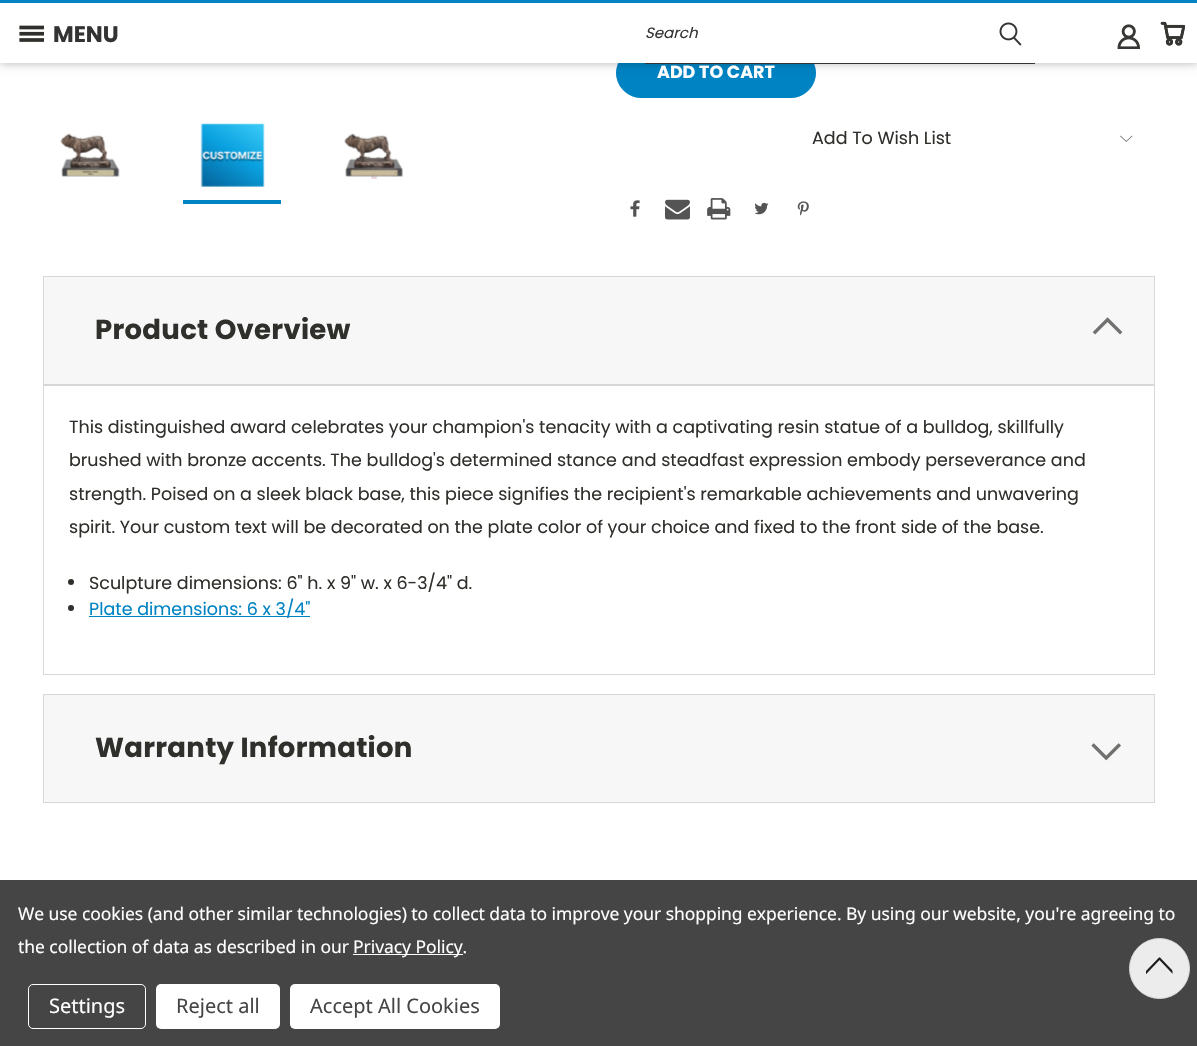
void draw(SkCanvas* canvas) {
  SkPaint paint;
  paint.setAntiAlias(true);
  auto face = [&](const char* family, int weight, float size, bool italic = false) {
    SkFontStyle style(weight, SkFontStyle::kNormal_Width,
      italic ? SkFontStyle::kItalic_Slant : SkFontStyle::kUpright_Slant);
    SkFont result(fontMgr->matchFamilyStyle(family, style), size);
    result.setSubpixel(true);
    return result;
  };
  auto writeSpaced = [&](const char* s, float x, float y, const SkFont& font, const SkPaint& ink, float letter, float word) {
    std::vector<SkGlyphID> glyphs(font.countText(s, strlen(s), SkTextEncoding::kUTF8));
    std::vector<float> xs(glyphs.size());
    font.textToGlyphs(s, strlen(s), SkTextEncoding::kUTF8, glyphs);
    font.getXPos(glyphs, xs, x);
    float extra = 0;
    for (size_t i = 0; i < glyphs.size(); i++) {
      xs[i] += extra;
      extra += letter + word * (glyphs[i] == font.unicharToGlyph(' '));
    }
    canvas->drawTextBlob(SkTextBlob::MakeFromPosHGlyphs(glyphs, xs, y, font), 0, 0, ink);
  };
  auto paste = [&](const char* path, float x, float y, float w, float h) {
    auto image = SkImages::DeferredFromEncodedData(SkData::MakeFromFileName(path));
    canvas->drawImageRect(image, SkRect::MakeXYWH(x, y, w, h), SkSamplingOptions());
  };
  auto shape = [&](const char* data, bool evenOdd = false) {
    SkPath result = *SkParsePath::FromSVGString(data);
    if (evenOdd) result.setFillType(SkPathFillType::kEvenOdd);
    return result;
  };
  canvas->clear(0xffffffff);
  paint.setColor(0xff0083c3);
  canvas->drawRoundRect(SkRect::MakeXYWH(616.5f, 48.5f, 199, 49), 24.5f, 24.5f, paint);
  paint.setStroke(true);
  paint.setStrokeWidth(1);
  canvas->drawRoundRect(SkRect::MakeXYWH(616.5f, 48.5f, 199, 49), 24.5f, 24.5f, paint);
  paint.setStroke(false);
  paint.setColor(0x4d000000);
  paint.setMaskFilter(SkMaskFilter::MakeBlur(kNormal_SkBlurStyle, 4.5f));
  canvas->drawRect(SkRect::MakeXYWH(0, 0, 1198, 63), paint);
  paint.setMaskFilter(nullptr);
  paint.setColor(0xffffffff);
  canvas->drawRect(SkRect::MakeXYWH(0, 3, 1197, 60), paint);
  paint.setColor(0xff0083c3);
  canvas->drawRect(SkRect::MakeXYWH(0, 0, 1197, 3), paint);
  paste("img/1.png", 19, 25, 25, 17);
  paint.setColor(0xff333333);
  canvas->drawRect(SkRect::MakeXYWH(645, 63, 390, 1), paint);
  paste("img/2.png", 999, 22, 23, 24);
  paste("img/3.png", 1117, 24, 23, 25);
  paste("img/4.png", 1160, 21, 25, 25);
  paste("img/5.png", 1120, 135, 13, 7);
  paste("img/6.png", 630, 200, 10, 17);
  paste("img/7.png", 665, 199, 25, 21);
  paste("img/8.png", 707, 198, 24, 22);
  paste("img/9.png", 754, 202, 15, 13);
  paste("img/10.png", 797, 201, 12, 15);
  paste("img/11.png", 60, 133, 60, 44);
  paint.setColor(0xff0083c3);
  canvas->drawRect(SkRect::MakeXYWH(183, 200, 98, 4), paint);
  paste("img/12.png", 200, 123, 65, 64);
  paste("img/13.png", 344, 133, 59, 46);
  paint.setColor(0xfff7f7f7);
  canvas->drawRect(SkRect::MakeXYWH(43.5f, 276.5f, 1111, 108), paint);
  paint.setStroke(true);
  paint.setColor(0xffd7d7d7);
  canvas->drawRect(SkRect::MakeXYWH(43.5f, 276.5f, 1111, 108), paint);
  paste("img/14.png", 1092, 317, 31, 18);
  canvas->drawRect(SkRect::MakeXYWH(43.5f, 385.5f, 1111, 289), paint);
  paint.setStroke(false);
  paint.setColor(0xff2f2f2b);
  canvas->drawCircle(71, 582, 3, paint);
  canvas->drawCircle(71, 608, 3, paint);
  paint.setColor(0xff0083c3);
  canvas->drawRect(SkRect::MakeXYWH(89, 616, 221, 1), paint);
  paint.setColor(0xfff7f7f7);
  canvas->drawRect(SkRect::MakeXYWH(43.5f, 694.5f, 1111, 108), paint);
  paint.setStroke(true);
  paint.setColor(0xffd7d7d7);
  canvas->drawRect(SkRect::MakeXYWH(43.5f, 694.5f, 1111, 108), paint);
  paste("img/15.png", 1091, 743, 30, 18);
  paint.setStroke(false);
  paint.setColor(0xff454545);
  canvas->drawRect(SkRect::MakeXYWH(0, 880, 1197, 166), paint);
  paint.setColor(0xffffffff);
  canvas->drawRect(SkRect::MakeXYWH(353, 954, 110, 1), paint);
  paint.setStroke(true);
  canvas->drawRoundRect(SkRect::MakeXYWH(28.5f, 984.5f, 117, 44), 4.5f, 4.5f, paint);
  paint.setStroke(false);
  canvas->drawRoundRect(SkRect::MakeXYWH(156, 984, 124, 45), 5, 5, paint);
  canvas->drawRoundRect(SkRect::MakeXYWH(290, 984, 210, 45), 5, 5, paint);
  paint.setColor(0xffececec);
  canvas->drawCircle(1159.5f, 968.5f, 30, paint);
  paint.setStroke(true);
  paint.setColor(0xffd7d7d7);
  canvas->drawCircle(1159.5f, 968.5f, 30, paint);
  canvas->save();
  canvas->clipPath(shape("M1172.5 957V983H1146V957Z"), true);
  paint.setStrokeWidth(2.2f);
  paint.setStrokeCap(SkPaint::kRound_Cap);
  paint.setStrokeJoin(SkPaint::kRound_Join);
  paint.setColor(0xff1f1f1f);
  canvas->drawPath(shape("M1181.5 981.5L1159.5 958.5L1137.5 981.5"), paint);
  canvas->restore();
  auto f0 = face("Poppins", 700, 22.5f);
  paint.setStroke(false);
  paint.setColor(0xff333333);
  canvas->drawString("MENU", 53, 42, f0, paint);
  auto f1 = face("Poppins", 400, 15, true);
  canvas->drawString("Search", 645, 38, f1, paint);
  auto f2 = face("Poppins", 700, 17.5f);
  paint.setColor(0xffffffff);
  canvas->drawString("ADD TO CART", 657, 78, f2, paint);
  auto f3 = face("Poppins", 400, 17.5f);
  paint.setColor(0xff2f2f2b);
  canvas->drawString("Add To Wish List", 812, 144, f3, paint);
  auto f4 = face("Poppins", 700, 27.5f);
  writeSpaced("Product Overview", 95, 339, f4, paint, 0.3f, 0);
  {
    const struct { const char* s; float x, y; } items[] = {
      {"This distinguished award celebrates your champion's tenacity with a captivating resin statue of a bulldog, skillfully", 69, 433},
      {"brushed with bronze accents. The bulldog's determined stance and steadfast expression embody perseverance and", 69, 466},
      {"strength. Poised on a sleek black base, this piece signifies the recipient's remarkable achievements and unwavering", 69, 500},
      {"spirit. Your custom text will be decorated on the plate color of your choice and fixed to the front side of the base.", 69, 533},
      {"Sculpture dimensions: 6\" h. x 9\" w. x 6-3/4\" d.", 89, 589},
    };
    for (auto [s, x, y] : items) {
      canvas->drawString(s, x, y, f3, paint);
    }
  }
  paint.setColor(0xff0083c3);
  canvas->drawString("Plate dimensions: 6 x 3/4\"", 89, 615, f3, paint);
  paint.setColor(0xff2f2f2b);
  writeSpaced("Warranty Information", 95, 757, f4, paint, 0.3f, 0);
  auto f5 = face("Noto Sans", 400, 17.5f);
  paint.setColor(0xffffffff);
  {
    const struct { const char* s; float x, y; } items[] = {
      {"We use cookies (and other similar technologies) to collect data to improve your shopping experience. By using our website, you're agreeing to", 18, 920},
      {"the collection of data as described in our", 18, 953},
      {"Privacy Policy.", 353, 953},
    };
    for (auto [s, x, y] : items) {
      writeSpaced(s, x, y, f5, paint, -0.06f, 0);
    }
  }
  auto f6 = face("Noto Sans", 400, 20);
  canvas->drawString("Settings", 49, 1013, f6, paint);
  paint.setColor(0xff454545);
  canvas->drawString("Reject all", 176, 1013, f6, paint);
  canvas->drawString("Accept All Cookies", 310, 1013, f6, paint);
}
